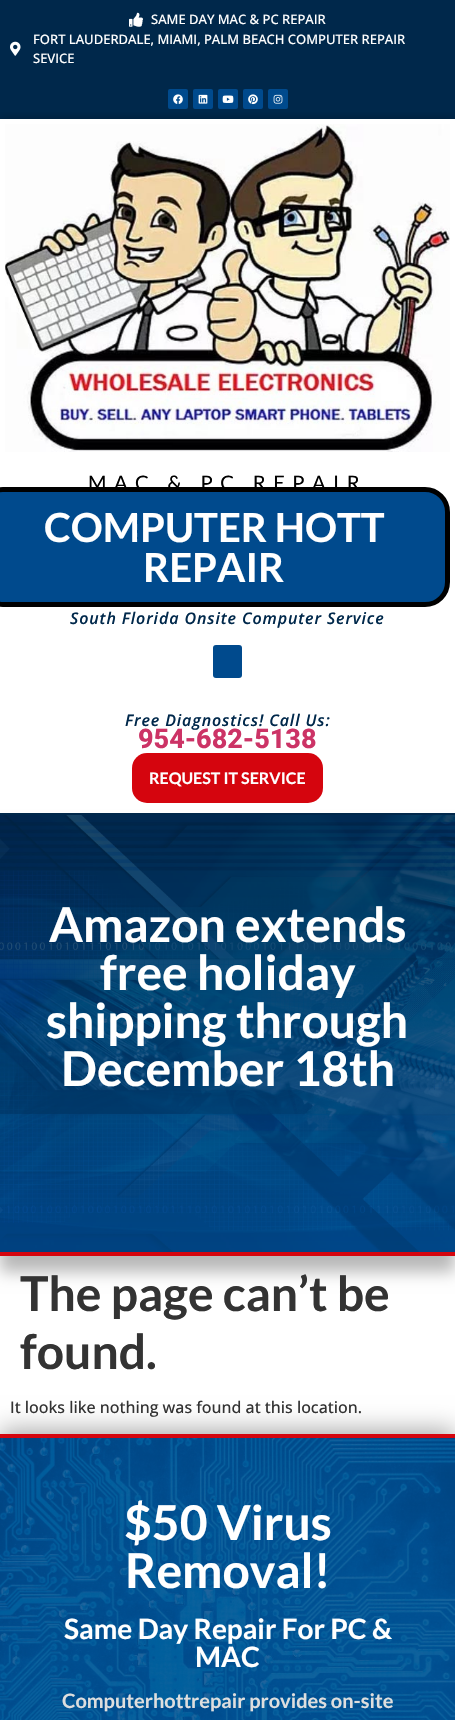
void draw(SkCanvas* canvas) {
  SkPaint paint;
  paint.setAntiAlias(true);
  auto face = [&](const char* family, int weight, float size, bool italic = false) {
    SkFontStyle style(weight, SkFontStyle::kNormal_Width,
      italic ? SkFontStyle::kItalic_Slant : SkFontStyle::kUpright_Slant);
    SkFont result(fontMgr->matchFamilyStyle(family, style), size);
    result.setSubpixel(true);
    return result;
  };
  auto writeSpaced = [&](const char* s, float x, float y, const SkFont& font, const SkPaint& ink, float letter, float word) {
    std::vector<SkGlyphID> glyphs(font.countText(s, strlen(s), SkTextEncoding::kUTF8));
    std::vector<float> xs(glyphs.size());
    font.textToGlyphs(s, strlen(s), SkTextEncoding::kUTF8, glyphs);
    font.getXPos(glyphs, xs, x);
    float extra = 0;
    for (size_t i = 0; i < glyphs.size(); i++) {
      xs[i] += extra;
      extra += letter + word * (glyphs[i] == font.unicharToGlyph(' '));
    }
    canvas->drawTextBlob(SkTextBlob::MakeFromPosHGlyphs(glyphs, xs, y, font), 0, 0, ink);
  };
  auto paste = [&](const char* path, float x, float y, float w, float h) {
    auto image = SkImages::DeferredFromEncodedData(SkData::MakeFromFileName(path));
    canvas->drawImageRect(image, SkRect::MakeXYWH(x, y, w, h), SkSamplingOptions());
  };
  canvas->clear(0xffffffff);
  paint.setColor(0xff00284b);
  canvas->drawRect(SkRect::MakeXYWH(0, 0, 455, 119), paint);
  paste("img/1.png", 129, 12, 14, 15);
  paste("img/2.png", 10, 41, 11, 15);
  paint.setColor(0xff004a8d);
  canvas->drawRoundRect(SkRect::MakeXYWH(168, 89, 20, 20), 2, 2, paint);
  paste("img/3.png", 173, 94, 10, 10);
  canvas->drawRoundRect(SkRect::MakeXYWH(193, 89, 20, 20), 2, 2, paint);
  paste("img/4.png", 198, 94, 10, 10);
  canvas->drawRoundRect(SkRect::MakeXYWH(218, 89, 20, 20), 2, 2, paint);
  paste("img/5.png", 222, 95, 12, 8);
  canvas->drawRoundRect(SkRect::MakeXYWH(243, 89, 20, 20), 2, 2, paint);
  paste("img/6.png", 248, 94, 10, 11);
  canvas->drawRoundRect(SkRect::MakeXYWH(268, 89, 20, 20), 2, 2, paint);
  paste("img/7.png", 273, 94, 10, 10);
  canvas->save();
  canvas->clipRect(SkRect::MakeXYWH(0, 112, 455, 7));
  paint.setColor(0x4a000000);
  paint.setMaskFilter(SkMaskFilter::MakeBlur(kNormal_SkBlurStyle, 5));
  canvas->drawRect(SkRect::MakeXYWH(0, 119, 455, 696), paint);
  paint.setMaskFilter(nullptr);
  canvas->restore();
  paint.setColor(0xff00284b);
  canvas->drawRect(SkRect::MakeXYWH(0, 813, 455, 2), paint);
  paste("img/8.png", 5, 124, 445, 328);
  paint.setColor(0xff004a8d);
  canvas->drawRoundRect(SkRect::MakeXYWH(213, 645, 29, 33), 3, 3, paint);
  paint.setColor(0xffd5050e);
  canvas->drawRoundRect(SkRect::MakeXYWH(132, 753, 191, 50), 15, 15, paint);
  paint.setColor(0x47000000);
  paint.setMaskFilter(SkMaskFilter::MakeBlur(kNormal_SkBlurStyle, 7.5f));
  canvas->drawRect(SkRect::MakeXYWH(0, 831, 455, 441), paint);
  paint.setMaskFilter(nullptr);
  paste("img/9.png", 0, 815, 455, 437);
  paint.setColor(0xffd5050e);
  canvas->drawRect(SkRect::MakeXYWH(0, 1252, 455, 4), paint);
  paint.setColor(0x52000000);
  paint.setMaskFilter(SkMaskFilter::MakeBlur(kNormal_SkBlurStyle, 11.5f));
  canvas->drawRect(SkRect::MakeXYWH(0, 1429, 455, 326), paint);
  paint.setMaskFilter(nullptr);
  paste("img/10.png", 0, 1438, 455, 282);
  paint.setColor(0xffd5050e);
  canvas->drawRect(SkRect::MakeXYWH(0, 1434, 455, 4), paint);
  auto f0 = face("Open Sans", 500, 13);
  paint.setColor(0xffffffff);
  {
    const struct { const char* s; float x, y; } items[] = {
      {"SAME DAY MAC & PC REPAIR", 151, 24},
      {"FORT LAUDERDALE, MIAMI, PALM BEACH COMPUTER REPAIR", 33, 44},
      {"SEVICE", 33, 63},
    };
    for (auto [s, x, y] : items) {
      canvas->drawString(s, x, y, f0, paint);
    }
  }
  auto f1 = face("Lato", 400, 20);
  paint.setColor(0xff000000);
  writeSpaced("MAC & PC REPAIR", 88, 490, f1, paint, 7.5f, 0);
  paint.setColor(0xff004a8d);
  canvas->drawRoundRect(SkRect::MakeXYWH(-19.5f, 489.5f, 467, 115), 22.5f, 22.5f, paint);
  paint.setStroke(true);
  paint.setStrokeWidth(5);
  paint.setColor(0xff000000);
  canvas->drawRoundRect(SkRect::MakeXYWH(-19.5f, 489.5f, 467, 115), 22.5f, 22.5f, paint);
  auto f2 = face("Lato", 700, 40);
  paint.setStroke(false);
  paint.setColor(0xffffffff);
  canvas->drawString("COMPUTER HOTT", 44, 542, f2, paint);
  canvas->drawString("REPAIR", 143, 582, f2, paint);
  auto f3 = face("Open Sans", 600, 16, true);
  paint.setColor(0xff00284b);
  writeSpaced("South Florida Onsite Computer Service", 70, 624, f3, paint, 0.9f, 0);
  writeSpaced("Free Diagnostics! Call Us:", 125, 726, f3, paint, 0.9f, 0);
  auto f4 = face("Roboto", 800, 27);
  paint.setColor(0xffcc3366);
  canvas->drawString("954-682-5138", 138, 748, f4, paint);
  auto f5 = face("Lato", 700, 16);
  paint.setColor(0xffffffff);
  canvas->drawString("REQUEST IT SERVICE", 149, 784, f5, paint);
  auto f6 = face("Lato", 700, 48);
  {
    const struct { const char* s; float x, y; } items[] = {
      {"Amazon extends", 49, 942},
      {"free holiday", 100, 990},
      {"shipping through", 46, 1038},
      {"December 18th", 61, 1086},
    };
    for (auto [s, x, y] : items) {
      canvas->drawString(s, x, y, f6, paint);
    }
  }
  paint.setColor(0xff333333);
  canvas->drawString("The page can’t be", 20, 1311, f6, paint);
  canvas->drawString("found.", 20, 1369, f6, paint);
  auto f7 = face("Open Sans", 500, 16);
  canvas->drawString("It looks like nothing was found at this location.", 10, 1413, f7, paint);
  paint.setColor(0xffffffff);
  canvas->drawString("$50 Virus", 124, 1540, f6, paint);
  canvas->drawString("Removal!", 125, 1588, f6, paint);
  auto f8 = face("Lato", 700, 28);
  canvas->drawString("Same Day Repair For PC &", 64, 1639, f8, paint);
  canvas->drawString("MAC", 195, 1667, f8, paint);
  auto f9 = face("Lato", 700, 20);
  paint.setColor(0xffdedede);
  canvas->drawString("Computerhottrepair provides on-site", 62, 1708, f9, paint);
}
